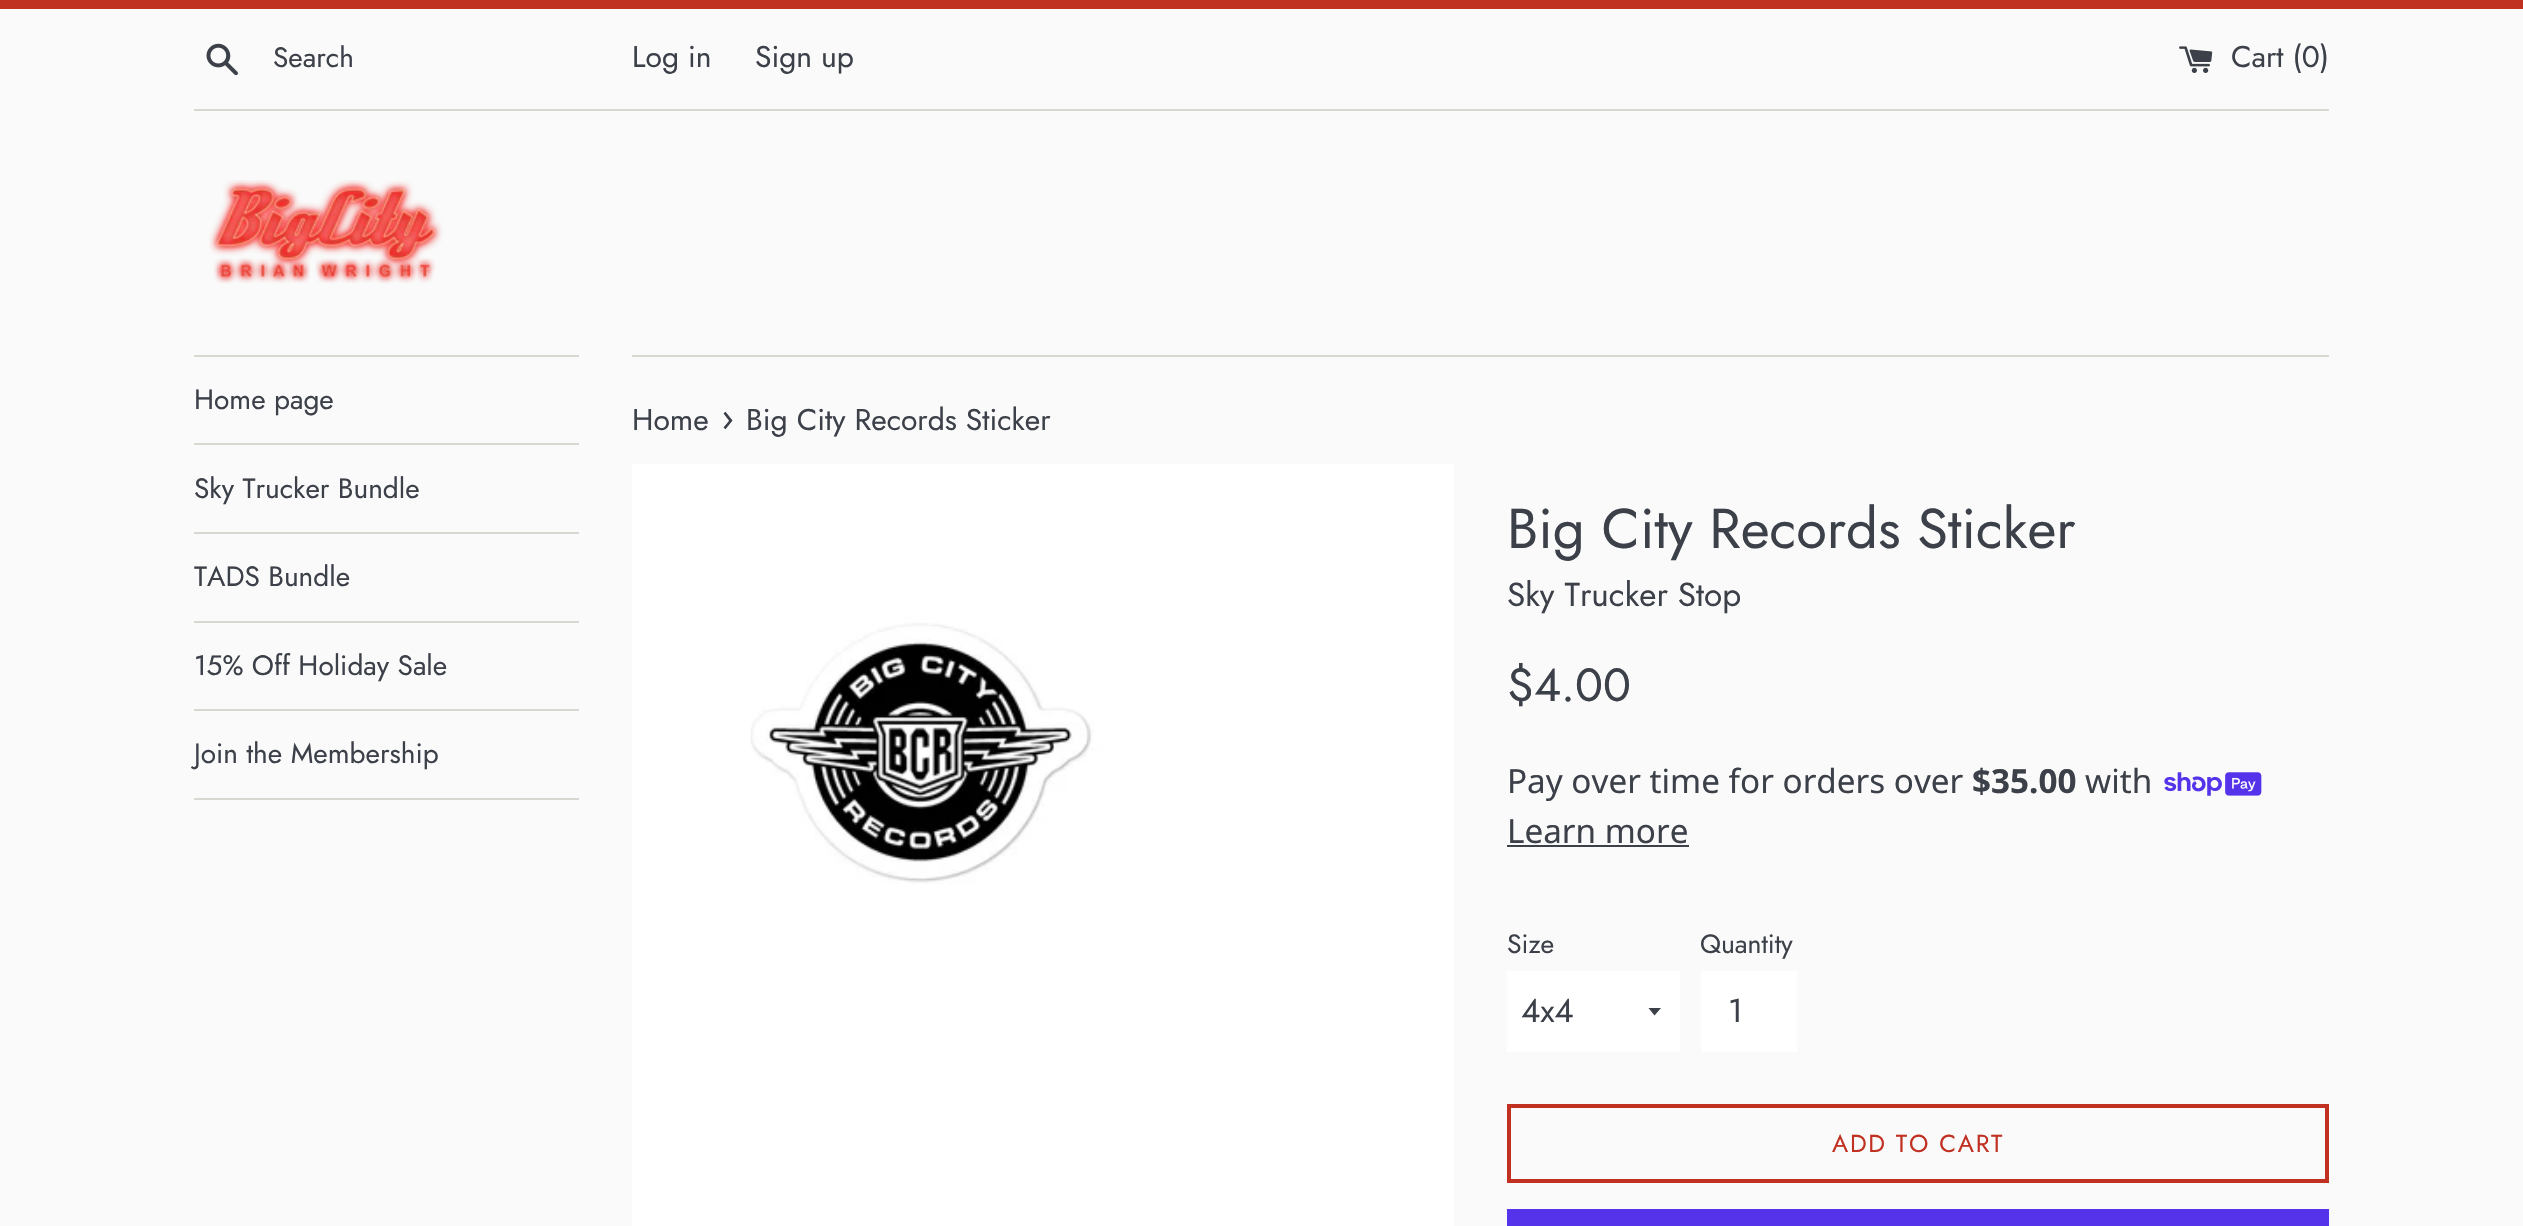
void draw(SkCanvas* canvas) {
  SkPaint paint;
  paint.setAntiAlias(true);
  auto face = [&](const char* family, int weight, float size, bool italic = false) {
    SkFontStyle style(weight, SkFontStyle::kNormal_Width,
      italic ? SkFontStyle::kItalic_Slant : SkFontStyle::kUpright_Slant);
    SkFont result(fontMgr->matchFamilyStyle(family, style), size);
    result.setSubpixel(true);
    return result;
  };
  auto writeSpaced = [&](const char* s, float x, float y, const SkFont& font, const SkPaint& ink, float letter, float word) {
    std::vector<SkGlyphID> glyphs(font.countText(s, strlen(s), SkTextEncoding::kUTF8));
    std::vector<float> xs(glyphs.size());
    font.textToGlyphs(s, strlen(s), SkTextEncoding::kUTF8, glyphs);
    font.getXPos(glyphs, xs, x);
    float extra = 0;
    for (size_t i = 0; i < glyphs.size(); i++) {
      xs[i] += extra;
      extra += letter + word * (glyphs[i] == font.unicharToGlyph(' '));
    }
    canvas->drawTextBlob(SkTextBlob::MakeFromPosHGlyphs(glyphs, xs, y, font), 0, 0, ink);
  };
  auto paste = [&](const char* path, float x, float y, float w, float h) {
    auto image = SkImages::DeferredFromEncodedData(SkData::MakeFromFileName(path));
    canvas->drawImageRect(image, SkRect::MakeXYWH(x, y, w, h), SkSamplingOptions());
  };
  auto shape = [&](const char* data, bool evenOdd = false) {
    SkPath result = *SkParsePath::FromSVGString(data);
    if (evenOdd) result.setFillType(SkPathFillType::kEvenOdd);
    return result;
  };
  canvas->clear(0xfffafafa);
  paint.setColor(0xffc13121);
  canvas->drawRect(SkRect::MakeXYWH(0, 0, 2523, 9), paint);
  paste("img/1.png", 206, 43, 32, 33);
  paste("img/2.png", 2179, 46, 34, 27);
  paint.setColor(0xffd7d8d2);
  canvas->drawRect(SkRect::MakeXYWH(194, 109, 2135, 2), paint);
  paste("img/3.png", 209, 180, 234, 104);
  {
    const struct { float x, y, w, h; SkColor color; } items[] = {
      {194, 355, 385, 2, 0xffd7d8d2},
      {194, 443, 385, 2, 0xffd7d8d2},
      {194, 532, 385, 2, 0xffd7d8d2},
      {194, 621, 385, 2, 0xffd7d8d2},
      {194, 709, 385, 2, 0xffd7d8d2},
      {194, 798, 385, 2, 0xffd7d8d2},
      {632, 355, 1697, 2, 0xffd7d8d2},
    };
    for (auto [x, y, w, h, color] : items) {
      paint.setColor(color);
      canvas->drawRect(SkRect::MakeXYWH(x, y, w, h), paint);
    }
  }
  paste("img/4.png", 632, 464, 822, 762);
  paste("img/5.png", 2164, 772, 98, 24);
  paint.setColor(0xff3c4049);
  canvas->drawRect(SkRect::MakeXYWH(1507, 845, 182, 2), paint);
  paint.setColor(0xffffffff);
  canvas->drawRect(SkRect::MakeXYWH(1507, 971, 173, 81), paint);
  paint.setColor(0xff3c4049);
  canvas->drawPath(shape("M1648.5 1008L1654.5 1015.5L1661 1008Z"), paint);
  paint.setColor(0xffffffff);
  canvas->drawRect(SkRect::MakeXYWH(1701, 971, 96, 81), paint);
  paint.setStroke(true);
  paint.setStrokeWidth(4);
  paint.setColor(0xffc13121);
  canvas->drawRect(SkRect::MakeXYWH(1509, 1106, 818, 75), paint);
  paint.setStroke(false);
  paint.setColor(0xff5433eb);
  canvas->drawRect(SkRect::MakeXYWH(1507, 1209, 822, 17), paint);
  auto f0 = face("Jost", 400, 28);
  paint.setColor(0xff3c4049);
  canvas->drawString("Search", 273, 67, f0, paint);
  auto f1 = face("Jost", 400, 30);
  {
    const struct { const char* s; float x, y; } items[] = {
      {"Log in", 632, 67},
      {"Sign up", 755, 67},
      {"Cart (0)", 2231, 67},
    };
    for (auto [s, x, y] : items) {
      canvas->drawString(s, x, y, f1, paint);
    }
  }
  {
    const struct { const char* s; float x, y; } items[] = {
      {"Home page", 194, 409},
      {"Sky Trucker Bundle", 194, 498},
      {"TADS Bundle", 194, 586},
      {"15% Off Holiday Sale", 194, 675},
      {"Join the Membership", 194, 763},
    };
    for (auto [s, x, y] : items) {
      canvas->drawString(s, x, y, f0, paint);
    }
  }
  canvas->drawString("Home", 632, 430, f1, paint);
  auto f2 = face("Jost", 400, 37);
  canvas->drawString("›", 721, 430, f2, paint);
  canvas->drawString("Big City Records Sticker", 746, 430, f1, paint);
  auto f3 = face("Jost", 400, 56);
  canvas->drawString("Big City Records Sticker", 1507, 548, f3, paint);
  auto f4 = face("Jost", 400, 33.25f);
  canvas->drawString("Sky Trucker Stop", 1507, 606, f4, paint);
  auto f5 = face("Jost", 400, 46.5f);
  canvas->drawString("$4.00", 1507, 701, f5, paint);
  auto f6 = face("Noto Sans", 400, 33.25f);
  canvas->drawString("Pay over time for orders over", 1507, 793, f6, paint);
  auto f7 = face("Noto Sans", 700, 33.25f);
  canvas->drawString("$35.00", 1972, 793, f7, paint);
  canvas->drawString("with", 2085, 793, f6, paint);
  canvas->drawString("Learn more", 1507, 843, f6, paint);
  auto f8 = face("Jost", 400, 26.5f);
  canvas->drawString("Size", 1507, 953, f8, paint);
  canvas->drawString("4x4", 1521, 1022, f4, paint);
  canvas->drawString("Quantity", 1700, 953, f8, paint);
  canvas->drawString("1", 1728, 1022, f4, paint);
  auto f9 = face("Jost", 400, 24.5f);
  paint.setColor(0xffc13121);
  writeSpaced("ADD TO CART", 1832, 1152, f9, paint, 1.75f, 0);
}
